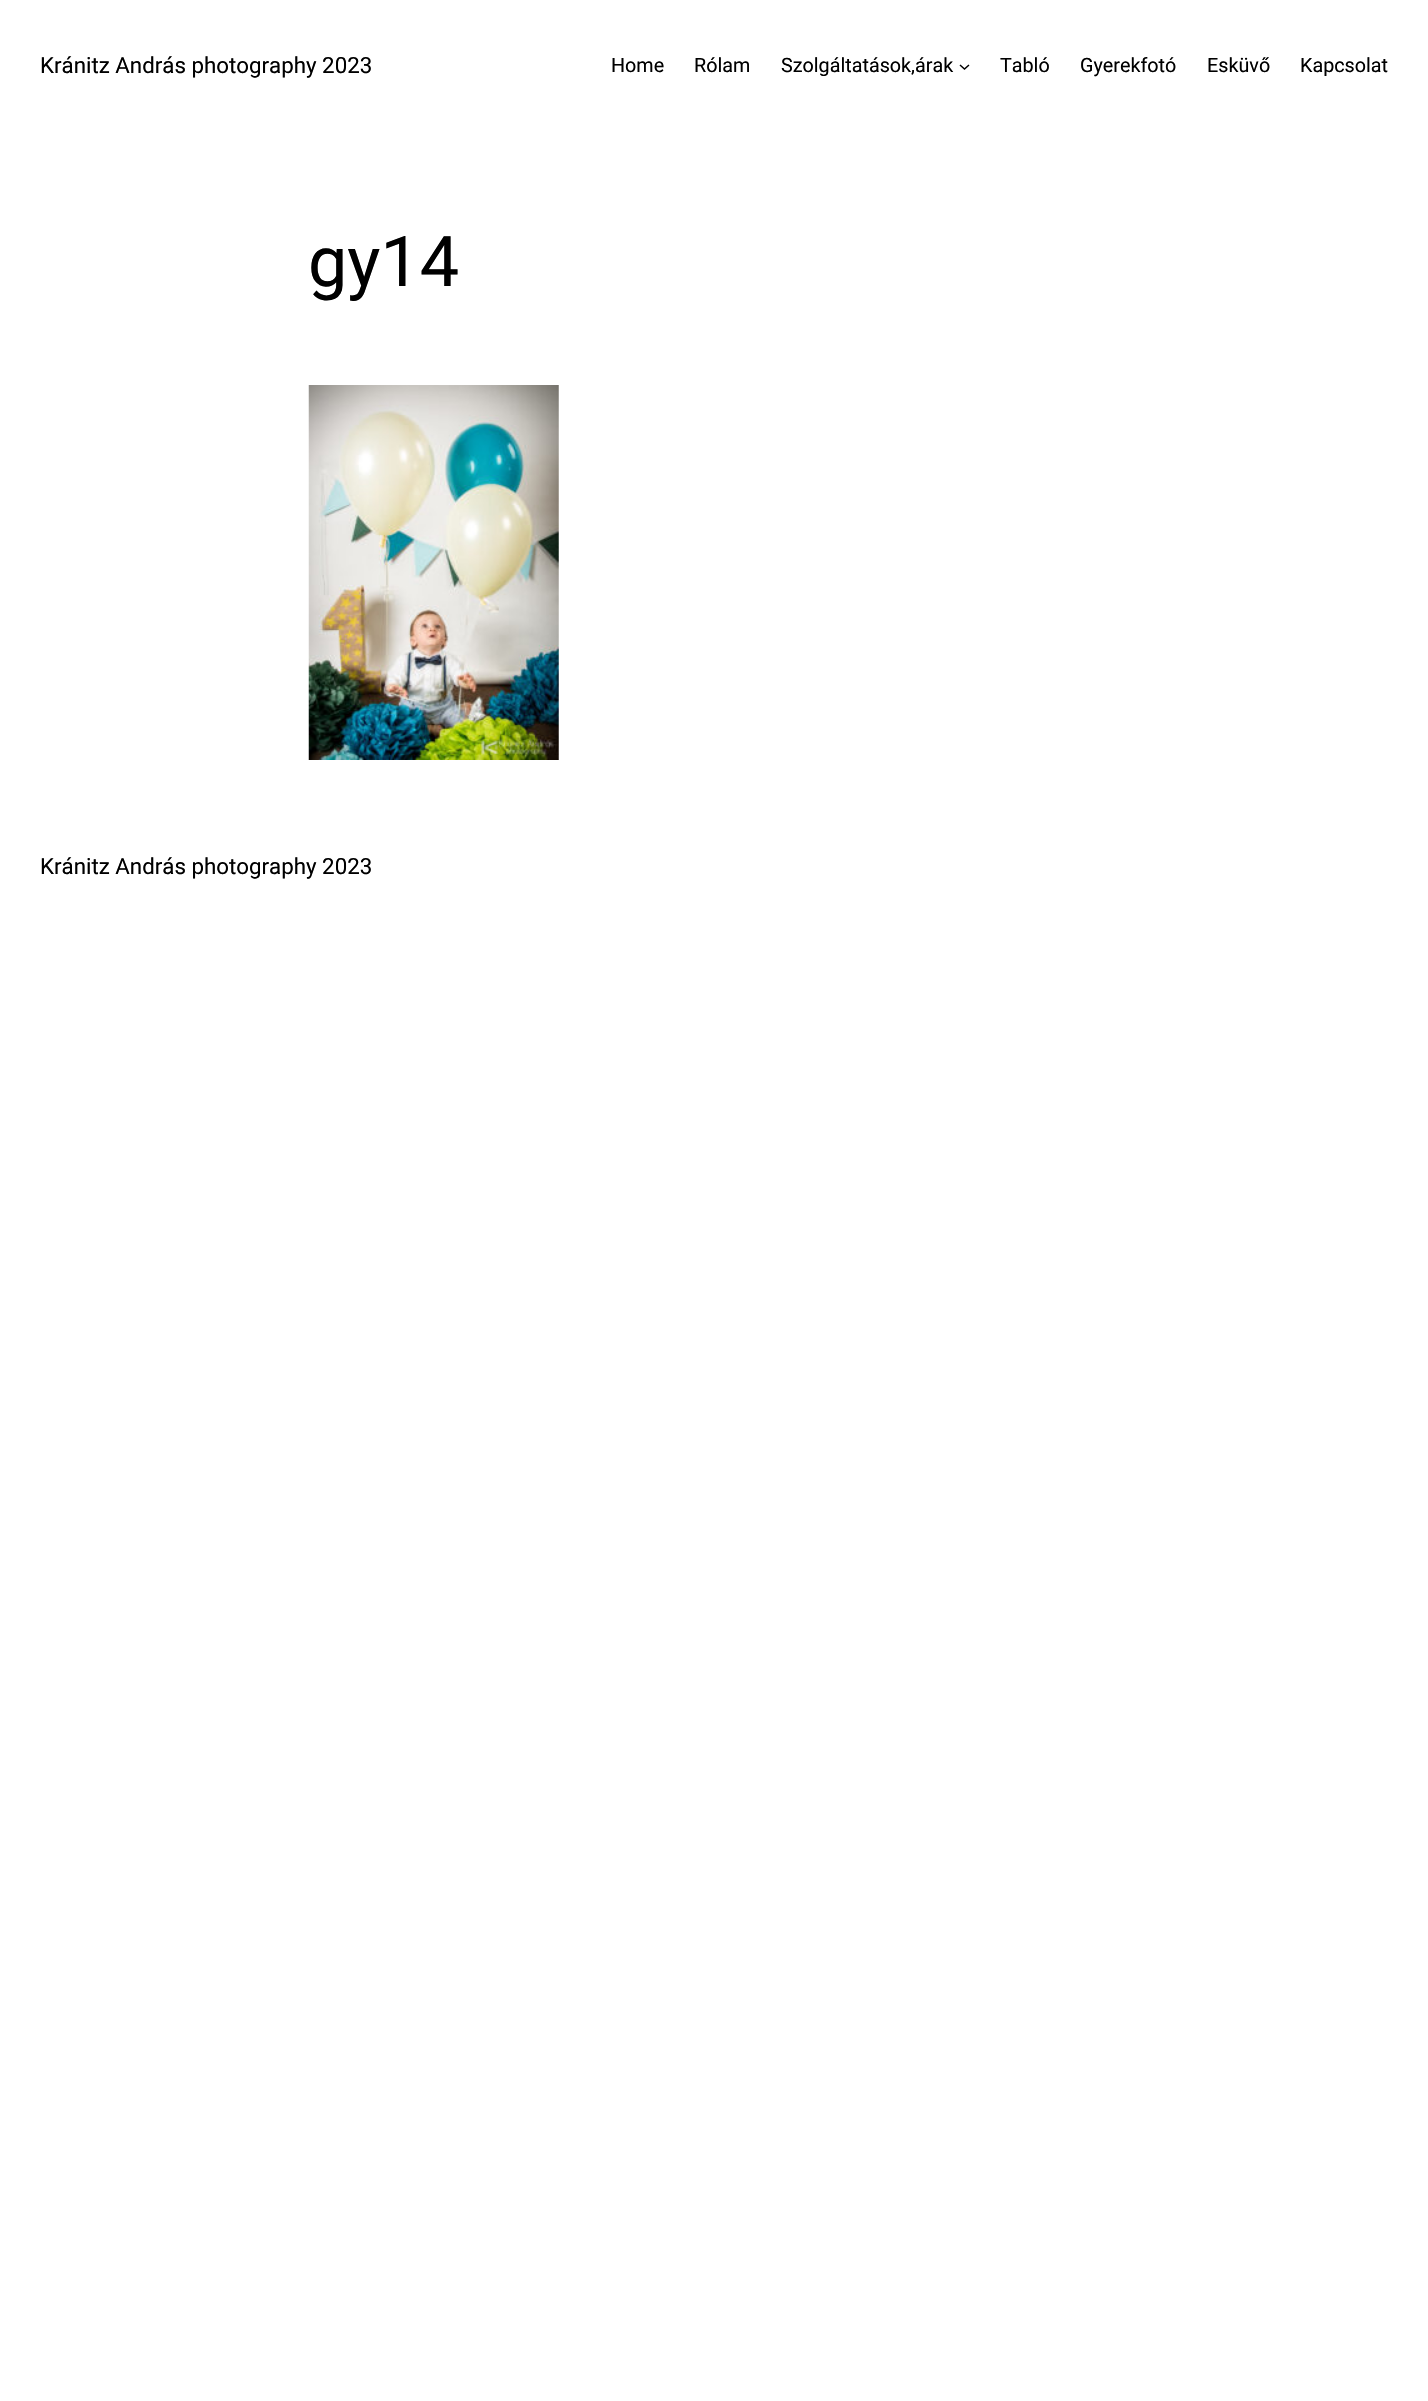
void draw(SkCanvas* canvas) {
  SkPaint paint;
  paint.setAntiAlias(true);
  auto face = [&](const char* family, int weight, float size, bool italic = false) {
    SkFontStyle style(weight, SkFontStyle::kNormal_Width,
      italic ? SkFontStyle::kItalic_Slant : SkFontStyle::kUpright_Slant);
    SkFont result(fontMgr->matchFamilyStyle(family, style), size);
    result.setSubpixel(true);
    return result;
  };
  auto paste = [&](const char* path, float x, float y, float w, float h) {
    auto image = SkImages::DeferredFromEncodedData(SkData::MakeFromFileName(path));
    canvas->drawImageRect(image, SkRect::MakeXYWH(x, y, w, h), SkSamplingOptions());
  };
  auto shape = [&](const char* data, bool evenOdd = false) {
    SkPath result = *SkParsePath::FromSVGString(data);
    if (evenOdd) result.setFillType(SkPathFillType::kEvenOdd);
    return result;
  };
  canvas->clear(0xffffffff);
  paint.setStroke(true);
  paint.setStrokeWidth(1.5f);
  paint.setColor(0xff000000);
  canvas->drawPath(shape("M960 65L964.5 69L969 65"), paint);
  paste("img/1.png", 308, 385, 251, 375);
  auto f0 = face("Roboto", 400, 22.3f);
  paint.setStroke(false);
  canvas->drawString("Kránitz András photography 2023", 40, 73, f0, paint);
  auto f1 = face("Roboto", 400, 19.75f);
  {
    const struct { const char* s; float x, y; } items[] = {
      {"Home", 611, 72},
      {"Rólam", 694, 72},
      {"Szolgáltatások,árak", 781, 72},
      {"Tabló", 1000, 72},
      {"Gyerekfotó", 1080, 72},
      {"Esküvő", 1207, 72},
      {"Kapcsolat", 1300, 72},
    };
    for (auto [s, x, y] : items) {
      canvas->drawString(s, x, y, f1, paint);
    }
  }
  auto f2 = face("Roboto", 400, 70);
  canvas->drawString("gy14", 308, 286, f2, paint);
  canvas->drawString("Kránitz András photography 2023", 40, 874, f0, paint);
}
